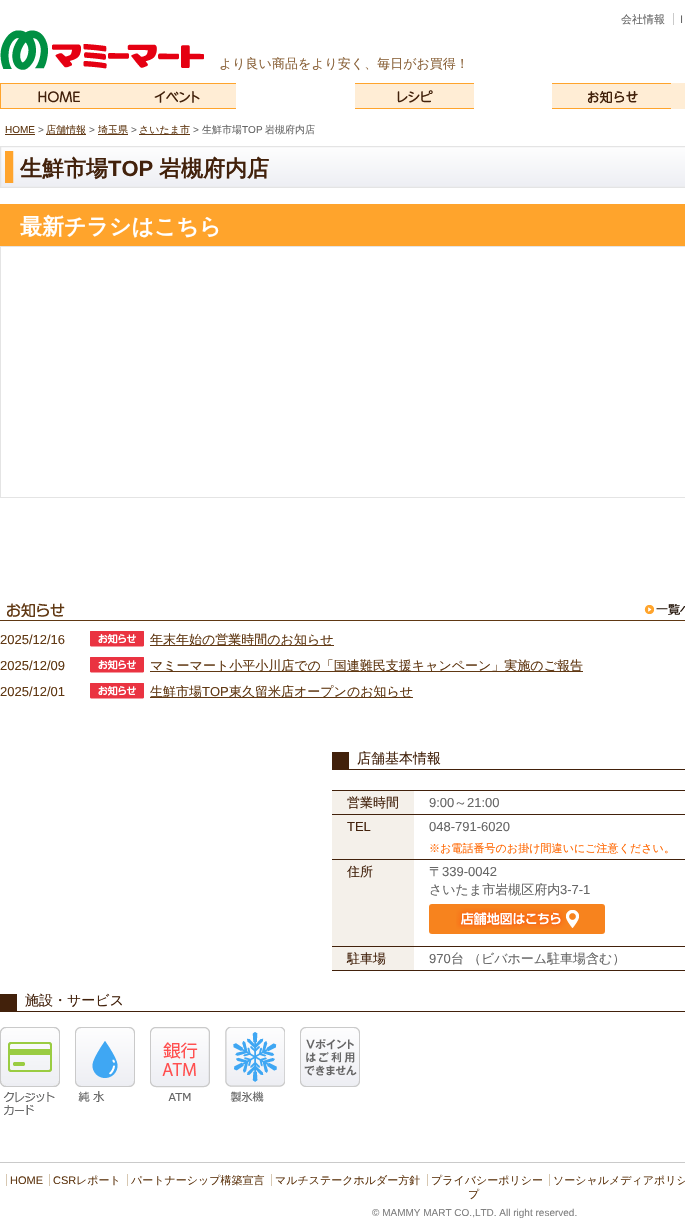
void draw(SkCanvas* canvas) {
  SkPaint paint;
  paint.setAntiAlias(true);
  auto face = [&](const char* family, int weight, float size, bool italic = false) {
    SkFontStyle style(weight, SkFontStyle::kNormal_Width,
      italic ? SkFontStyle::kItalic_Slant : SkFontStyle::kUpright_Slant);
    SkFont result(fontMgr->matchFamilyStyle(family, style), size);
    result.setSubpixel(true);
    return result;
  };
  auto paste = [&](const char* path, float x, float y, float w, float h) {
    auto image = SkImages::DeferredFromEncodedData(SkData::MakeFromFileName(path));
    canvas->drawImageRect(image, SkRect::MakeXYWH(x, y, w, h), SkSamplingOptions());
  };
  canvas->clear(0xffffffff);
  paint.setColor(0xffcacaca);
  canvas->drawRect(SkRect::MakeXYWH(673, 13, 1, 12), paint);
  paste("img/1.png", 0, 30, 204, 40);
  paste("img/2.png", 0, 83, 118, 26);
  paste("img/3.png", 118, 83, 118, 26);
  paste("img/4.png", 355, 83, 119, 26);
  paste("img/5.png", 552, 83, 119, 26);
  {
    const struct { float x, y, w, h; SkColor color; } items[] = {
      {671, 83, 14, 26, 0xffffedd5},
      {5, 134, 30, 1, 0xff603813},
      {46, 134, 40, 1, 0xff603813},
      {98, 134, 30, 1, 0xff603813},
      {139, 134, 51, 1, 0xff603813},
    };
    for (auto [x, y, w, h, color] : items) {
      paint.setColor(color);
      canvas->drawRect(SkRect::MakeXYWH(x, y, w, h), paint);
    }
  }
  paste("img/6.png", 0, 146, 685, 42);
  paint.setColor(0xffffa42c);
  canvas->drawRect(SkRect::MakeXYWH(0, 204, 685, 42), paint);
  paint.setStroke(true);
  paint.setStrokeWidth(1);
  paint.setColor(0xffe4e4e4);
  canvas->drawRect(SkRect::MakeXYWH(0.5f, 246.5f, 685, 251), paint);
  paint.setStroke(false);
  paint.setColor(0xff603813);
  canvas->drawRect(SkRect::MakeXYWH(0, 620, 685, 1), paint);
  paste("img/7.png", 7, 603, 58, 14);
  paste("img/8.png", 644, 604, 41, 11);
  paste("img/9.png", 90, 631, 54, 16);
  canvas->drawRect(SkRect::MakeXYWH(150, 645, 184, 1), paint);
  paste("img/9.png", 90, 657, 54, 16);
  canvas->drawRect(SkRect::MakeXYWH(150, 671, 433, 1), paint);
  paste("img/9.png", 90, 683, 54, 16);
  {
    const struct { float x, y, w, h; SkColor color; } items[] = {
      {150, 697, 263, 1, 0xff603813},
      {332, 752, 17, 17, 0xff42210b},
      {332, 769, 353, 1, 0xff42210b},
      {332, 791, 82, 23, 0xfff4f0ea},
      {332, 790, 353, 1, 0xff42210b},
      {332, 815, 82, 44, 0xfff4f0ea},
      {332, 814, 353, 1, 0xff42210b},
      {332, 860, 82, 86, 0xfff4f0ea},
      {332, 859, 353, 1, 0xff42210b},
    };
    for (auto [x, y, w, h, color] : items) {
      paint.setColor(color);
      canvas->drawRect(SkRect::MakeXYWH(x, y, w, h), paint);
    }
  }
  paint.setColor(0xfff7831e);
  canvas->drawRoundRect(SkRect::MakeXYWH(429, 904, 176, 30), 3, 3, paint);
  paste("img/10.png", 456, 908, 123, 21);
  {
    const struct { float x, y, w, h; SkColor color; } items[] = {
      {332, 947, 82, 23, 0xfff4f0ea},
      {332, 946, 353, 1, 0xff42210b},
      {332, 970, 353, 1, 0xff42210b},
      {0, 994, 17, 17, 0xff42210b},
      {0, 1011, 685, 1, 0xff42210b},
    };
    for (auto [x, y, w, h, color] : items) {
      paint.setColor(color);
      canvas->drawRect(SkRect::MakeXYWH(x, y, w, h), paint);
    }
  }
  paste("img/11.png", 0, 1027, 60, 88);
  paste("img/12.png", 75, 1027, 60, 75);
  paste("img/13.png", 150, 1027, 60, 74);
  paste("img/14.png", 225, 1027, 60, 75);
  paste("img/15.png", 300, 1027, 60, 60);
  {
    const struct { float x, y, w, h; SkColor color; } items[] = {
      {0, 1162, 685, 1, 0xffcacaca},
      {6, 1174, 1, 12, 0xffd7c8b2},
      {49, 1174, 1, 12, 0xffd7c8b2},
      {127, 1174, 1, 12, 0xffd7c8b2},
      {271, 1174, 1, 12, 0xffd7c8b2},
      {427, 1174, 1, 12, 0xffd7c8b2},
      {549, 1174, 1, 12, 0xffd7c8b2},
    };
    for (auto [x, y, w, h, color] : items) {
      paint.setColor(color);
      canvas->drawRect(SkRect::MakeXYWH(x, y, w, h), paint);
    }
  }
  auto f0 = face("WenQuanYi Zen Hei", 500, 11);
  paint.setColor(0xff666666);
  canvas->drawString("会社情報", 621, 23, f0, paint);
  auto f1 = face("Liberation Sans", 400, 11);
  canvas->drawString("I", 680, 23, f1, paint);
  auto f2 = face("WenQuanYi Zen Hei", 500, 13);
  paint.setColor(0xff8a6239);
  canvas->drawString("より良い商品をより安く、毎日がお買得！", 219, 68, f2, paint);
  auto f3 = face("Liberation Sans", 400, 10);
  paint.setColor(0xff603813);
  canvas->drawString("HOME", 5, 133, f3, paint);
  paint.setColor(0xff666666);
  canvas->drawString(">", 38, 133, f3, paint);
  auto f4 = face("WenQuanYi Zen Hei", 500, 10);
  paint.setColor(0xff603813);
  canvas->drawString("店舗情報", 46, 133, f4, paint);
  paint.setColor(0xff666666);
  canvas->drawString(">", 89, 133, f3, paint);
  paint.setColor(0xff603813);
  canvas->drawString("埼玉県", 98, 133, f4, paint);
  paint.setColor(0xff666666);
  canvas->drawString(">", 131, 133, f3, paint);
  paint.setColor(0xff603813);
  canvas->drawString("さいたま市", 139, 133, f4, paint);
  paint.setColor(0xff666666);
  canvas->drawString(">", 193, 133, f3, paint);
  canvas->drawString("生鮮市場", 202, 133, f4, paint);
  canvas->drawString("TOP", 242, 133, f3, paint);
  canvas->drawString("岩槻府内店", 265, 133, f4, paint);
  auto f5 = face("WenQuanYi Zen Hei", 700, 22);
  paint.setColor(0xff42210b);
  canvas->drawString("生鮮市場", 20, 176, f5, paint);
  auto f6 = face("Liberation Sans", 700, 22);
  canvas->drawString("TOP", 108, 176, f6, paint);
  canvas->drawString("岩槻府内店", 159, 176, f5, paint);
  paint.setColor(0xffffffff);
  canvas->drawString("最新チラシはこちら", 20, 234, f5, paint);
  auto f7 = face("Liberation Sans", 400, 13);
  paint.setColor(0xff603813);
  canvas->drawString("2025/12/16", 0, 644, f7, paint);
  canvas->drawString("年末年始の営業時間のお知らせ", 150, 644, f2, paint);
  canvas->drawString("2025/12/09", 0, 670, f7, paint);
  canvas->drawString("マミーマート小平小川店での「国連難民支援キャンペーン」実施のご報告", 150, 670, f2, paint);
  canvas->drawString("2025/12/01", 0, 696, f7, paint);
  canvas->drawString("生鮮市場", 150, 696, f2, paint);
  canvas->drawString("TOP", 202, 696, f7, paint);
  canvas->drawString("東久留米店オープンのお知らせ", 229, 696, f2, paint);
  auto f8 = face("WenQuanYi Zen Hei", 500, 14);
  paint.setColor(0xff42210b);
  canvas->drawString("店舗基本情報", 357, 763, f8, paint);
  canvas->drawString("営業時間", 347, 807, f2, paint);
  paint.setColor(0xff666666);
  canvas->drawString("9:00", 429, 807, f7, paint);
  canvas->drawString("～", 454, 807, f2, paint);
  canvas->drawString("21:00", 467, 807, f7, paint);
  paint.setColor(0xff42210b);
  canvas->drawString("TEL", 347, 831, f7, paint);
  paint.setColor(0xff666666);
  canvas->drawString("048-791-6020", 429, 831, f7, paint);
  auto f9 = face("WenQuanYi Zen Hei", 500, 11.05f);
  paint.setColor(0xffff6600);
  canvas->drawString("※お電話番号のお掛け間違いにご注意ください。", 429, 852, f9, paint);
  paint.setColor(0xff42210b);
  canvas->drawString("住所", 347, 876, f2, paint);
  paint.setColor(0xff666666);
  canvas->drawString("〒", 429, 876, f2, paint);
  canvas->drawString("339-0042", 442, 876, f7, paint);
  canvas->drawString("さいたま市岩槻区府内", 429, 894, f2, paint);
  canvas->drawString("3-7-1", 560, 894, f7, paint);
  paint.setColor(0xff42210b);
  canvas->drawString("駐車場", 347, 963, f2, paint);
  paint.setColor(0xff666666);
  canvas->drawString("970", 429, 963, f7, paint);
  canvas->drawString("台 （ビバホーム駐車場含む）", 451, 963, f2, paint);
  paint.setColor(0xff42210b);
  canvas->drawString("施設・サービス", 25, 1005, f8, paint);
  paint.setColor(0xff603813);
  canvas->drawString("HOME", 10, 1184, f1, paint);
  canvas->drawString("CSR", 53, 1184, f1, paint);
  {
    const struct { const char* s; float x, y; } items[] = {
      {"レポート", 76, 1184},
      {"パートナーシップ構築宣言", 131, 1184},
      {"マルチステークホルダー方針", 275, 1184},
      {"プライバシーポリシー", 431, 1184},
      {"ソーシャルメディアポリシ", 553, 1184},
      {"プ", 468, 1198},
    };
    for (auto [s, x, y] : items) {
      canvas->drawString(s, x, y, f0, paint);
    }
  }
  paint.setColor(0xff808080);
  canvas->drawString("© MAMMY MART CO.,LTD. All right reserved.", 372, 1216, f3, paint);
}
